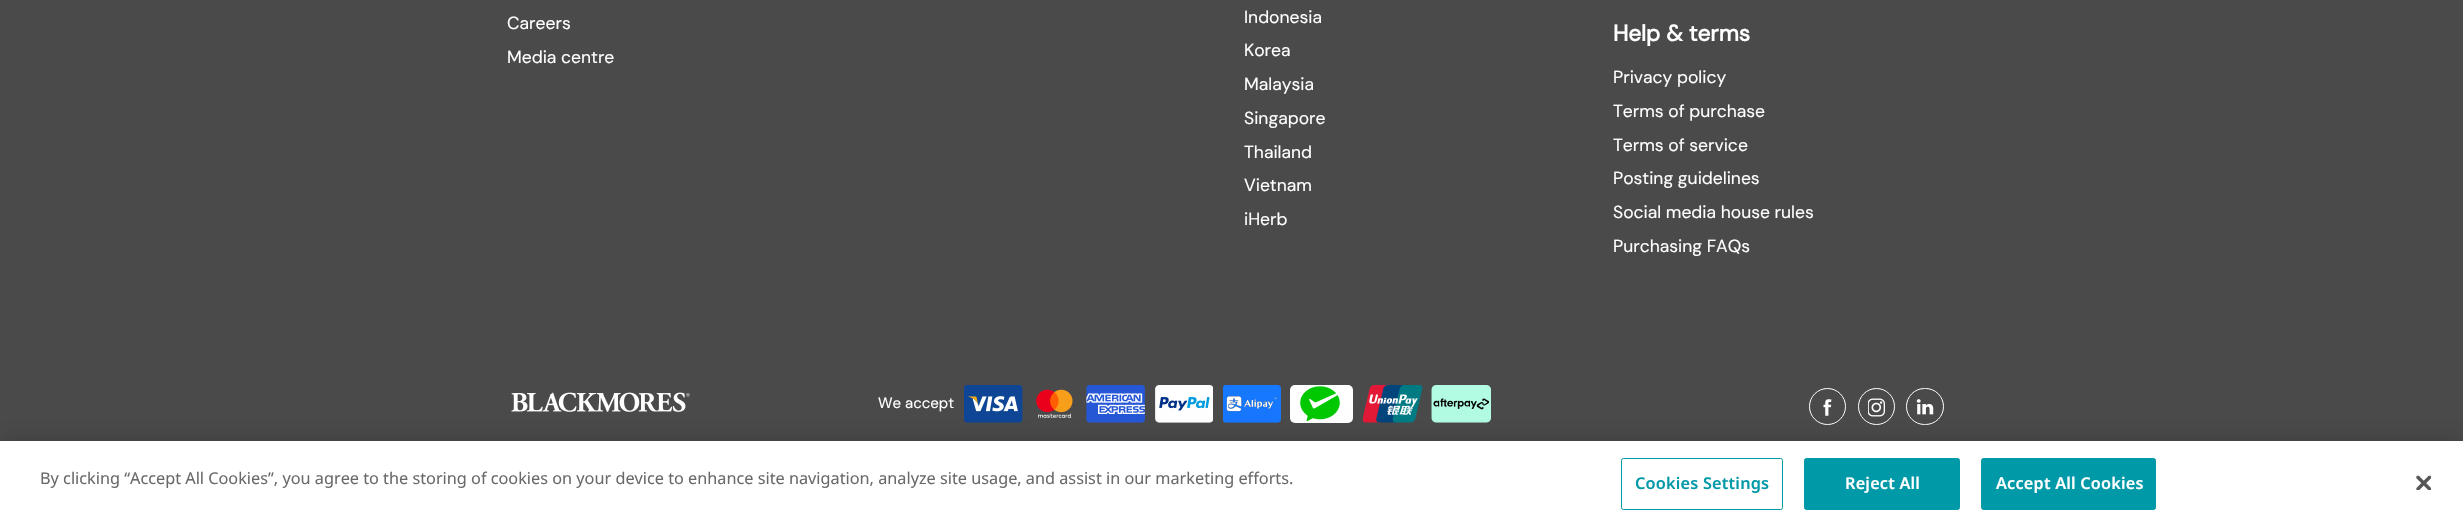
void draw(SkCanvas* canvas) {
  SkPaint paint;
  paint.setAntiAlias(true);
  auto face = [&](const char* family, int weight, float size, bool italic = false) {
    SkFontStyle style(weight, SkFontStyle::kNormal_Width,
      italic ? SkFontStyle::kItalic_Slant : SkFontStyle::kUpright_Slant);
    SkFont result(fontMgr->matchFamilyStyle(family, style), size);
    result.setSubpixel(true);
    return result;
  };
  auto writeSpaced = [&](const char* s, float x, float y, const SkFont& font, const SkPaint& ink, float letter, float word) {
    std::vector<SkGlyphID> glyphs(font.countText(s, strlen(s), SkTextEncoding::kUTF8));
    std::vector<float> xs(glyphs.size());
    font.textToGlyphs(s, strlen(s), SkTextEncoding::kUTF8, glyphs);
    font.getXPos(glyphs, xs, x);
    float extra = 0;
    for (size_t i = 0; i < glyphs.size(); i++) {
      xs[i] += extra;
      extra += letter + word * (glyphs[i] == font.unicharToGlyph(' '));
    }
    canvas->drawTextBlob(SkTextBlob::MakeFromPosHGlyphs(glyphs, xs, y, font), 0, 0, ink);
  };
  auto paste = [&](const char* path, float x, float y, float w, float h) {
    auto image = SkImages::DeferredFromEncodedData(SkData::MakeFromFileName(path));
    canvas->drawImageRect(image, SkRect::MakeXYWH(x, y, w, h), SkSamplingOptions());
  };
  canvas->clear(0xff4a4a4a);
  paste("img/1.png", 511, 392, 179, 20);
  paste("img/2.png", 964, 385, 59, 38);
  paste("img/3.png", 1036, 389, 37, 29);
  paste("img/4.png", 1086, 385, 59, 38);
  paste("img/5.png", 1155, 385, 58, 38);
  paste("img/6.png", 1223, 385, 58, 38);
  paint.setColor(0xffffffff);
  canvas->drawRoundRect(SkRect::MakeXYWH(1290, 385, 63, 38), 5, 5, paint);
  paste("img/7.png", 1300, 386, 40, 35);
  paste("img/8.png", 1363, 385, 60, 38);
  paste("img/9.png", 1431, 385, 60, 38);
  paint.setStroke(true);
  paint.setStrokeWidth(1);
  canvas->drawCircle(1827.5f, 406.5f, 18, paint);
  paste("img/10.png", 1823, 399, 9, 17);
  canvas->drawCircle(1876.5f, 406.5f, 18, paint);
  paste("img/11.png", 1868, 398, 17, 19);
  canvas->drawRoundRect(SkRect::MakeXYWH(1906.5f, 388.5f, 37, 36), 18, 18, paint);
  paste("img/12.png", 1916, 399, 18, 16);
  paint.setStroke(false);
  paint.setColor(0x33000000);
  paint.setMaskFilter(SkMaskFilter::MakeBlur(kNormal_SkBlurStyle, 11));
  canvas->drawRect(SkRect::MakeXYWH(0, 441, 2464, 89), paint);
  paint.setMaskFilter(nullptr);
  paint.setColor(0xffffffff);
  canvas->drawRect(SkRect::MakeXYWH(0, 441, 2463, 88), paint);
  paint.setStroke(true);
  paint.setColor(0xff0099a8);
  canvas->drawRoundRect(SkRect::MakeXYWH(1621.5f, 458.5f, 161, 51), 2, 2, paint);
  paint.setStroke(false);
  canvas->drawRoundRect(SkRect::MakeXYWH(1804.5f, 458.5f, 155, 51), 2, 2, paint);
  paint.setStroke(true);
  canvas->drawRoundRect(SkRect::MakeXYWH(1804.5f, 458.5f, 155, 51), 2, 2, paint);
  paint.setStroke(false);
  canvas->drawRoundRect(SkRect::MakeXYWH(1981.5f, 458.5f, 174, 51), 2, 2, paint);
  paint.setStroke(true);
  canvas->drawRoundRect(SkRect::MakeXYWH(1981.5f, 458.5f, 174, 51), 2, 2, paint);
  paste("img/13.png", 2416, 475, 15, 15);
  auto f0 = face("DM Sans", 400, 17.5f);
  paint.setStroke(false);
  paint.setColor(0xffffffff);
  {
    const struct { const char* s; float x, y; } items[] = {
      {"Careers", 507, 29},
      {"Media centre", 507, 63},
      {"Indonesia", 1244, 23},
      {"Korea", 1244, 56},
      {"Malaysia", 1244, 90},
      {"Singapore", 1244, 124},
      {"Thailand", 1244, 158},
      {"Vietnam", 1244, 191},
      {"iHerb", 1244, 225},
    };
    for (auto [s, x, y] : items) {
      canvas->drawString(s, x, y, f0, paint);
    }
  }
  auto f1 = face("DM Sans", 700, 22.5f);
  canvas->drawString("Help & terms", 1613, 41, f1, paint);
  {
    const struct { const char* s; float x, y; } items[] = {
      {"Privacy policy", 1613, 83},
      {"Terms of purchase", 1613, 117},
      {"Terms of service", 1613, 151},
      {"Posting guidelines", 1613, 184},
      {"Social media house rules", 1613, 218},
      {"Purchasing FAQs", 1613, 252},
    };
    for (auto [s, x, y] : items) {
      canvas->drawString(s, x, y, f0, paint);
    }
  }
  auto f2 = face("DM Sans", 400, 15);
  canvas->drawString("We accept", 878, 408, f2, paint);
  auto f3 = face("Noto Sans", 400, 16.25f);
  paint.setColor(0xff696969);
  canvas->drawString("By clicking “Accept All Cookies”, you agree to the storing of cookies on your device to enhance site navigation, analyze site usage, and assist in our marketing efforts.", 40, 484, f3, paint);
  auto f4 = face("Noto Sans", 600, 16.25f);
  paint.setColor(0xff0099a8);
  writeSpaced("Cookies Settings", 1635, 489, f4, paint, 0.2f, 0);
  paint.setColor(0xffffffff);
  writeSpaced("Reject All", 1845, 489, f4, paint, 0.2f, 0);
  writeSpaced("Accept All Cookies", 1996, 489, f4, paint, 0.2f, 0);
}
